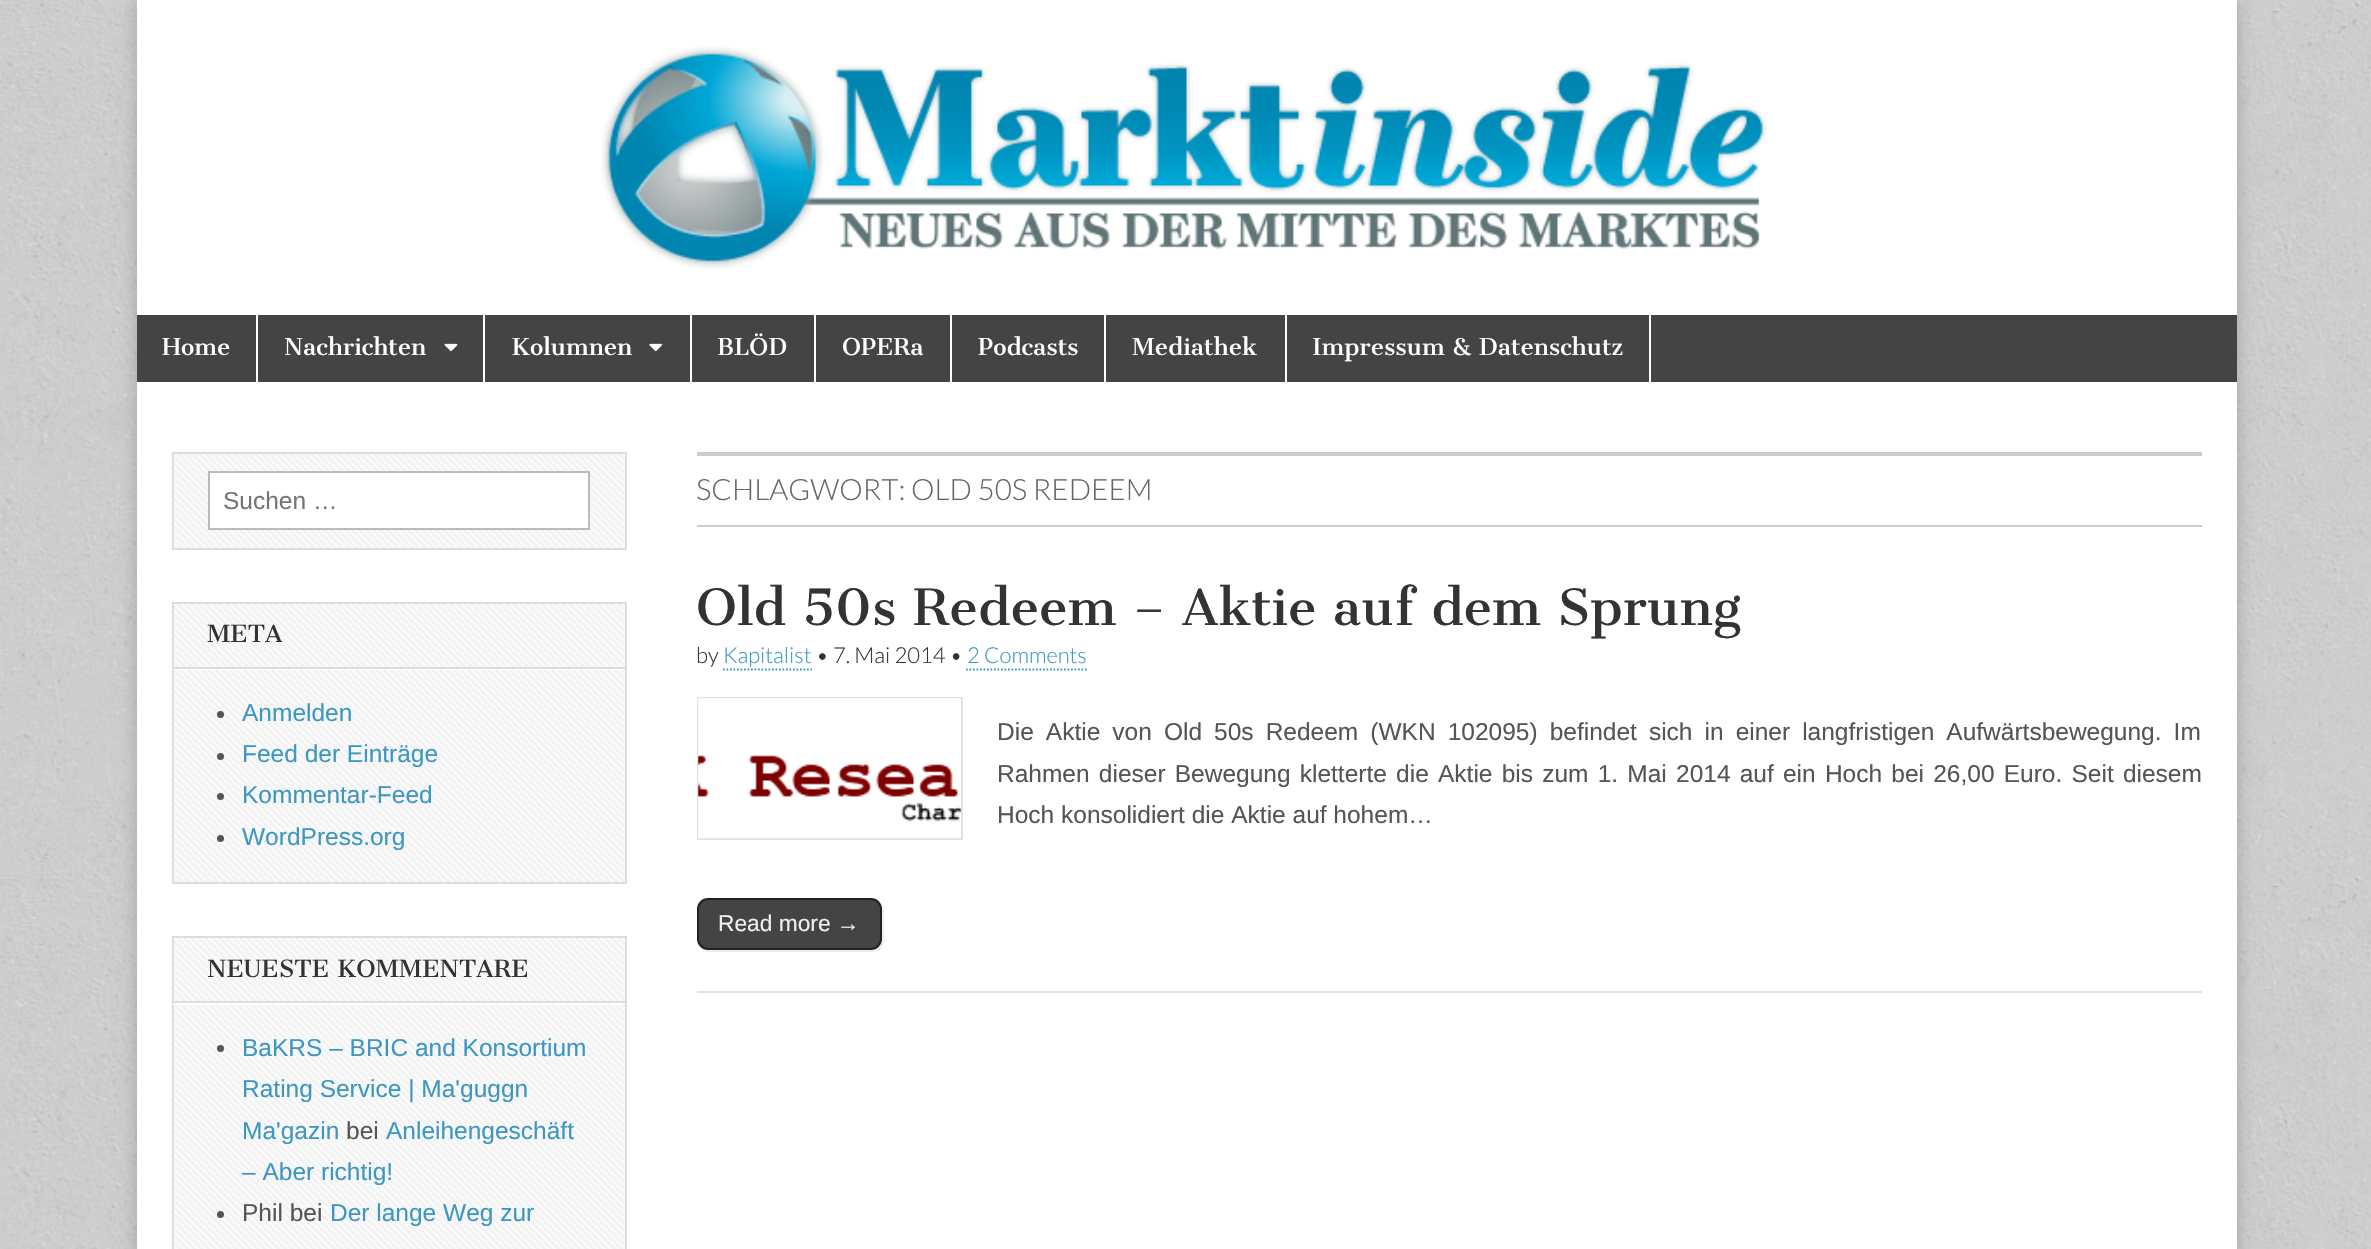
void draw(SkCanvas* canvas) {
  SkPaint paint;
  paint.setAntiAlias(true);
  auto face = [&](const char* family, int weight, float size, bool italic = false) {
    SkFontStyle style(weight, SkFontStyle::kNormal_Width,
      italic ? SkFontStyle::kItalic_Slant : SkFontStyle::kUpright_Slant);
    SkFont result(fontMgr->matchFamilyStyle(family, style), size);
    result.setSubpixel(true);
    return result;
  };
  auto writeSpaced = [&](const char* s, float x, float y, const SkFont& font, const SkPaint& ink, float letter, float word) {
    std::vector<SkGlyphID> glyphs(font.countText(s, strlen(s), SkTextEncoding::kUTF8));
    std::vector<float> xs(glyphs.size());
    font.textToGlyphs(s, strlen(s), SkTextEncoding::kUTF8, glyphs);
    font.getXPos(glyphs, xs, x);
    float extra = 0;
    for (size_t i = 0; i < glyphs.size(); i++) {
      xs[i] += extra;
      extra += letter + word * (glyphs[i] == font.unicharToGlyph(' '));
    }
    canvas->drawTextBlob(SkTextBlob::MakeFromPosHGlyphs(glyphs, xs, y, font), 0, 0, ink);
  };
  auto paste = [&](const char* path, float x, float y, float w, float h) {
    auto image = SkImages::DeferredFromEncodedData(SkData::MakeFromFileName(path));
    canvas->drawImageRect(image, SkRect::MakeXYWH(x, y, w, h), SkSamplingOptions());
  };
  auto shape = [&](const char* data, bool evenOdd = false) {
    SkPath result = *SkParsePath::FromSVGString(data);
    if (evenOdd) result.setFillType(SkPathFillType::kEvenOdd);
    return result;
  };
  canvas->clear(0xffffffff);
  paste("img/1.png", 0, 0, 2371, 1249);
  paint.setColor(0x33000000);
  paint.setMaskFilter(SkMaskFilter::MakeBlur(kNormal_SkBlurStyle, 9));
  canvas->drawRect(SkRect::MakeXYWH(137, 0, 2100, 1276), paint);
  paint.setMaskFilter(nullptr);
  paint.setColor(0xffffffff);
  canvas->drawRect(SkRect::MakeXYWH(137, 0, 2100, 1249), paint);
  paste("img/2.png", 601, 46, 1166, 223);
  {
    const struct { float x, y, w, h; SkColor color; } items[] = {
      {137, 315, 2100, 67, 0xff444444},
      {256, 315, 2, 67, 0xffffffff},
      {483, 315, 2, 67, 0xffffffff},
    };
    for (auto [x, y, w, h, color] : items) {
      paint.setColor(color);
      canvas->drawRect(SkRect::MakeXYWH(x, y, w, h), paint);
    }
  }
  paste("img/3.png", 444, 343, 14, 9);
  canvas->drawRect(SkRect::MakeXYWH(690, 315, 2, 67), paint);
  paste("img/4.png", 649, 343, 14, 9);
  {
    const struct { float x, y, w, h; SkColor color; } items[] = {
      {814, 315, 2, 67, 0xffffffff},
      {950, 315, 2, 67, 0xffffffff},
      {1104, 315, 2, 67, 0xffffffff},
      {1285, 315, 2, 67, 0xffffffff},
      {1649, 315, 2, 67, 0xffffffff},
    };
    for (auto [x, y, w, h, color] : items) {
      paint.setColor(color);
      canvas->drawRect(SkRect::MakeXYWH(x, y, w, h), paint);
    }
  }
  paste("img/5.png", 171, 451, 456, 99);
  paint.setStroke(true);
  paint.setStrokeWidth(2);
  paint.setColor(0xffdddddd);
  canvas->drawRect(SkRect::MakeXYWH(173, 453, 453, 96), paint);
  paint.setStroke(false);
  paint.setColor(0xffffffff);
  canvas->drawRect(SkRect::MakeXYWH(209, 472, 380, 57), paint);
  paint.setStroke(true);
  paint.setColor(0xffbbbbbb);
  canvas->drawRect(SkRect::MakeXYWH(209, 472, 380, 57), paint);
  paste("img/6.png", 171, 602, 454, 282);
  paint.setColor(0xffdddddd);
  canvas->drawRect(SkRect::MakeXYWH(173, 603, 453, 280), paint);
  paint.setStroke(false);
  paint.setColor(0xffffffff);
  canvas->drawPath(shape("M173 606V670H625V606V668H173Z"), paint);
  paint.setColor(0xffdddddd);
  canvas->drawRect(SkRect::MakeXYWH(173, 667, 452, 2), paint);
  paint.setColor(0xff555555);
  canvas->drawCircle(220.5f, 714.5f, 3.5f, paint);
  canvas->drawCircle(220.5f, 756.5f, 3.5f, paint);
  canvas->drawCircle(220.5f, 796.5f, 3.5f, paint);
  canvas->drawCircle(220.5f, 838.5f, 3.5f, paint);
  paste("img/7.png", 171, 936, 454, 313);
  paint.setStroke(true);
  paint.setColor(0xffdddddd);
  canvas->drawRect(SkRect::MakeXYWH(173, 937, 453, 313), paint);
  paint.setStroke(false);
  paint.setColor(0xffffffff);
  canvas->drawPath(shape("M173 940V1005H625V940V1003H173Z"), paint);
  paint.setColor(0xffdddddd);
  canvas->drawRect(SkRect::MakeXYWH(173, 1001, 452, 2), paint);
  paint.setColor(0xff555555);
  canvas->drawCircle(220.5f, 1048.5f, 3.5f, paint);
  canvas->drawCircle(220.5f, 1214.5f, 3.5f, paint);
  paint.setColor(0xffcccccc);
  canvas->drawRect(SkRect::MakeXYWH(697, 452, 1505, 4), paint);
  canvas->drawRect(SkRect::MakeXYWH(697, 525, 1505, 2), paint);
  paint.setStroke(true);
  paint.setStrokeWidth(1.8f);
  paint.setColor(0xff3d97c2);
  paint.setPathEffect(SkDashPathEffect::Make({{1.75f, 1.75f}}, 0));
  canvas->drawPath(shape("M723 669.5H812"), paint);
  paint.setPathEffect(nullptr);
  paint.setPathEffect(SkDashPathEffect::Make({{1.75f, 1.75f}}, 0));
  canvas->drawPath(shape("M966 669.5H1087"), paint);
  paint.setPathEffect(nullptr);
  paint.setStroke(false);
  paint.setColor(0xffe2e2e2);
  canvas->drawRect(SkRect::MakeXYWH(697, 991, 1505, 2), paint);
  paint.setStroke(true);
  paint.setStrokeWidth(2);
  canvas->drawRect(SkRect::MakeXYWH(698, 698, 264, 141), paint);
  paste("img/8.png", 698, 698, 263, 141);
  paint.setStroke(false);
  paint.setColor(0xffeeeeee);
  canvas->drawPath(shape("M701 948C703 950 706 952 709 952H873C879 952 884 947 884 941V911C884 908 883 905 881 903C882 905 882 906 882 908V940C882 946 877 950 872 950H707C705 950 702 949 701 948Z"), paint);
  paint.setColor(0xff444444);
  canvas->drawRoundRect(SkRect::MakeXYWH(698, 899, 183, 50), 10, 10, paint);
  paint.setStroke(true);
  paint.setColor(0xff222222);
  canvas->drawRoundRect(SkRect::MakeXYWH(698, 899, 183, 50), 10, 10, paint);
  auto f0 = face("Cantata One", 400, 22.75f);
  paint.setStroke(false);
  paint.setColor(0xffffffff);
  {
    const struct { const char* s; float x, y; } items[] = {
      {"Home", 162, 355},
      {"Nachrichten", 284, 355},
      {"Kolumnen", 511, 355},
      {"BLÖD", 717, 355},
      {"OPERa", 842, 355},
      {"Podcasts", 978, 355},
      {"Mediathek", 1132, 355},
      {"Impressum & Datenschutz", 1312, 355},
    };
    for (auto [s, x, y] : items) {
      canvas->drawString(s, x, y, f0, paint);
    }
  }
  auto f1 = face("Liberation Sans", 400, 24.5f);
  paint.setColor(0xff757575);
  canvas->drawString("Suchen …", 223, 509, f1, paint);
  auto f2 = face("Cantata One", 400, 23.25f);
  paint.setColor(0xff333333);
  canvas->drawString("META", 207, 642, f2, paint);
  paint.setColor(0xff3d97c2);
  {
    const struct { const char* s; float x, y; } items[] = {
      {"Anmelden", 242, 721},
      {"Feed der Einträge", 242, 762},
      {"Kommentar-Feed", 242, 803},
      {"WordPress.org", 242, 845},
    };
    for (auto [s, x, y] : items) {
      canvas->drawString(s, x, y, f1, paint);
    }
  }
  paint.setColor(0xff333333);
  canvas->drawString("NEUESTE KOMMENTARE", 207, 977, f2, paint);
  paint.setColor(0xff3d97c2);
  {
    const struct { const char* s; float x, y; } items[] = {
      {"BaKRS – BRIC and Konsortium", 242, 1056},
      {"Rating Service | Ma'guggn", 242, 1097},
      {"Ma'gazin", 242, 1139},
    };
    for (auto [s, x, y] : items) {
      canvas->drawString(s, x, y, f1, paint);
    }
  }
  paint.setColor(0xff555555);
  canvas->drawString("bei", 346, 1139, f1, paint);
  paint.setColor(0xff3d97c2);
  canvas->drawString("Anleihengeschäft", 386, 1139, f1, paint);
  canvas->drawString("– Aber richtig!", 242, 1180, f1, paint);
  paint.setColor(0xff555555);
  canvas->drawString("Phil bei", 242, 1221, f1, paint);
  paint.setColor(0xff3d97c2);
  canvas->drawString("Der lange Weg zur", 330, 1221, f1, paint);
  auto f3 = face("Lato", 300, 29.4f);
  paint.setColor(0xff666666);
  canvas->drawString("SCHLAGWORT: OLD 50S REDEEM", 696, 500, f3, paint);
  auto f4 = face("Cantata One", 400, 49);
  paint.setColor(0xff333333);
  canvas->drawString("Old 50s Redeem – Aktie auf dem Sprung", 696, 625, f4, paint);
  auto f5 = face("Lato", 300, 22);
  canvas->drawString("by", 696, 663, f5, paint);
  paint.setColor(0xff3d97c2);
  canvas->drawString("Kapitalist", 723, 663, f5, paint);
  paint.setColor(0xff333333);
  canvas->drawString("• 7. Mai 2014 •", 816, 663, f5, paint);
  paint.setColor(0xff3d97c2);
  canvas->drawString("2 Comments", 967, 663, f5, paint);
  paint.setColor(0xff555555);
  writeSpaced("Die Aktie von Old 50s Redeem (WKN 102095) befindet sich in einer langfristigen Aufwärtsbewegung. Im", 997, 740, f1, paint, 0, 5.25f);
  writeSpaced("Rahmen dieser Bewegung kletterte die Aktie bis zum 1. Mai 2014 auf ein Hoch bei 26,00 Euro. Seit diesem", 997, 782, f1, paint, 0, 2.4f);
  canvas->drawString("Hoch konsolidiert die Aktie auf hohem…", 997, 823, f1, paint);
  auto f6 = face("Liberation Sans", 400, 22.75f);
  paint.setColor(0xffeeeeee);
  canvas->drawString("Read more →", 718, 931, f6, paint);
}
